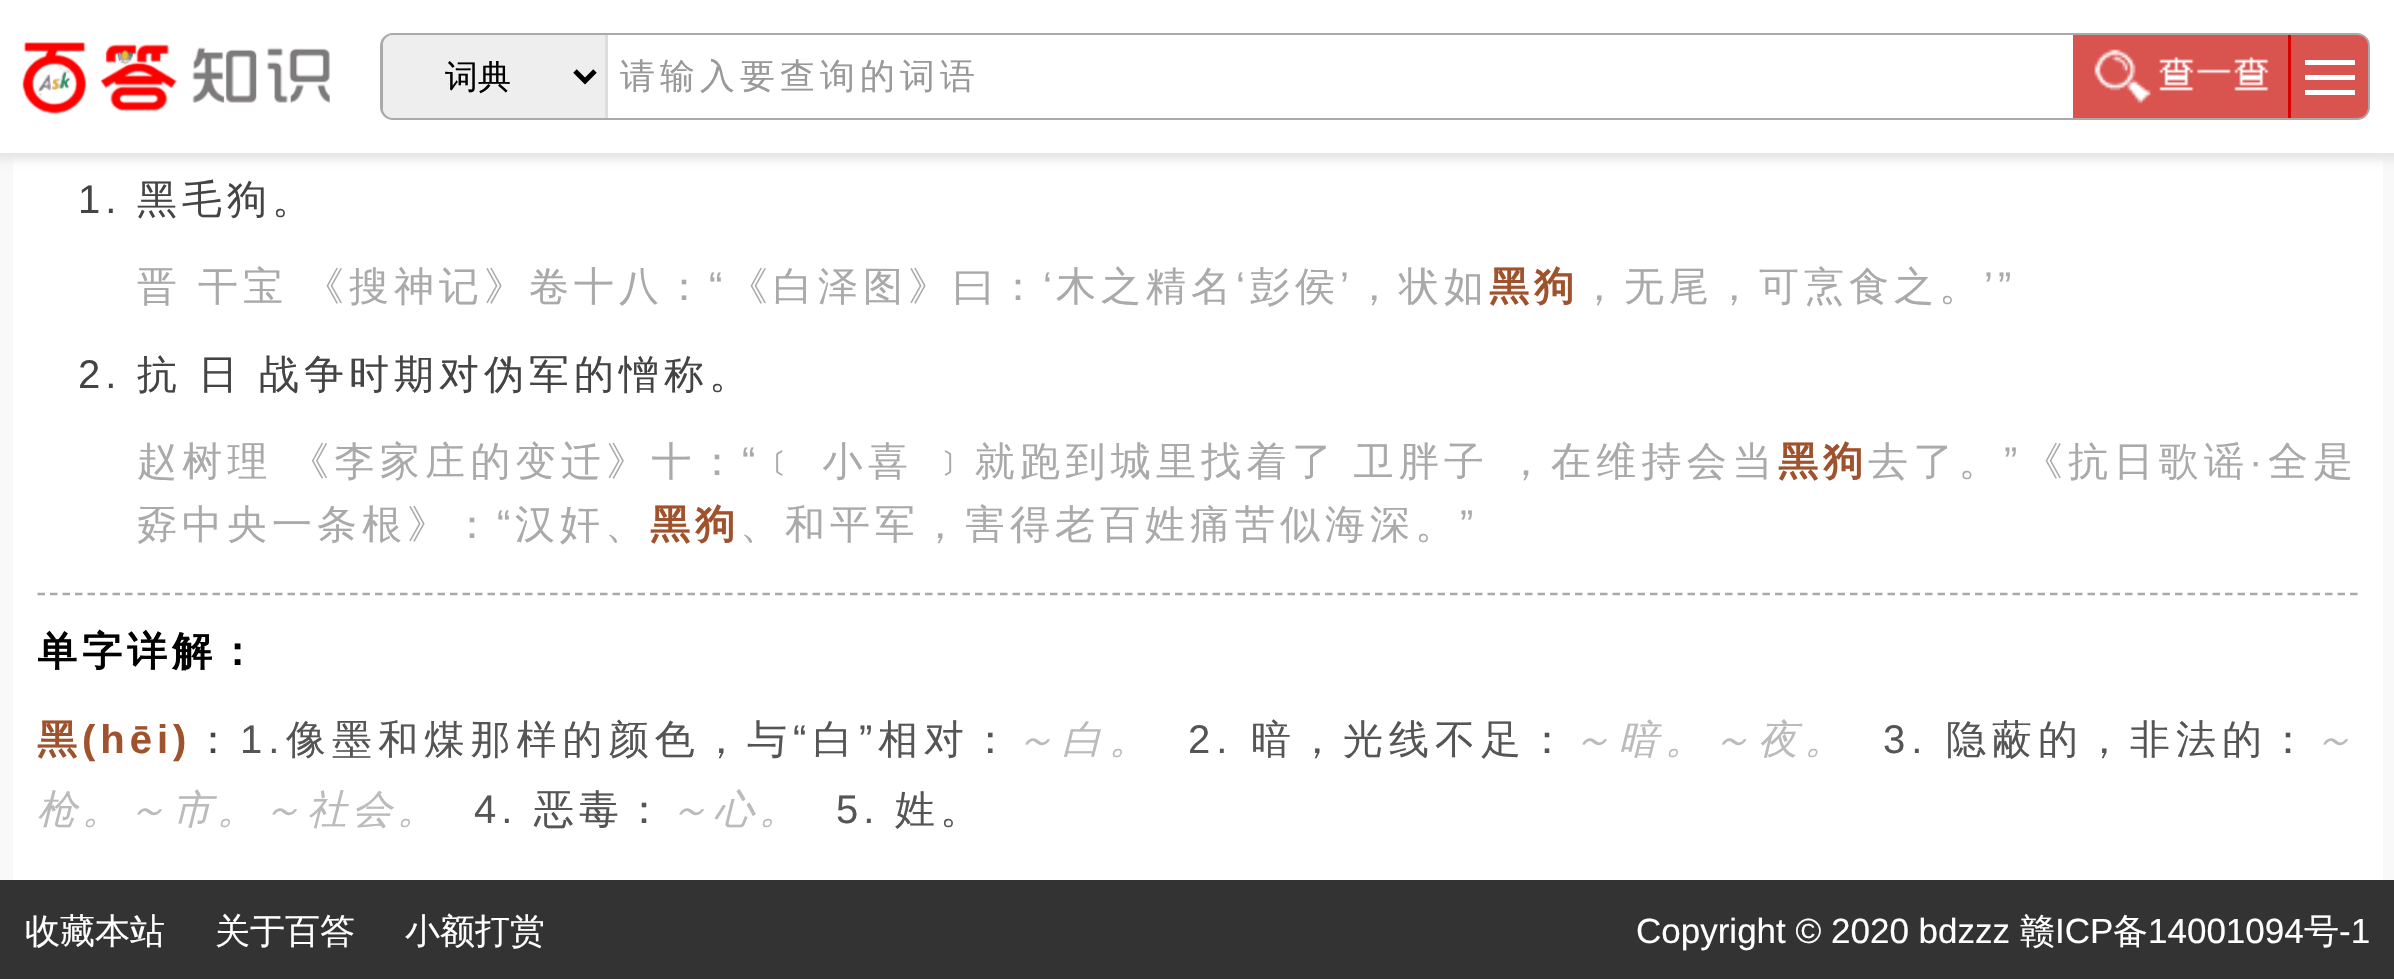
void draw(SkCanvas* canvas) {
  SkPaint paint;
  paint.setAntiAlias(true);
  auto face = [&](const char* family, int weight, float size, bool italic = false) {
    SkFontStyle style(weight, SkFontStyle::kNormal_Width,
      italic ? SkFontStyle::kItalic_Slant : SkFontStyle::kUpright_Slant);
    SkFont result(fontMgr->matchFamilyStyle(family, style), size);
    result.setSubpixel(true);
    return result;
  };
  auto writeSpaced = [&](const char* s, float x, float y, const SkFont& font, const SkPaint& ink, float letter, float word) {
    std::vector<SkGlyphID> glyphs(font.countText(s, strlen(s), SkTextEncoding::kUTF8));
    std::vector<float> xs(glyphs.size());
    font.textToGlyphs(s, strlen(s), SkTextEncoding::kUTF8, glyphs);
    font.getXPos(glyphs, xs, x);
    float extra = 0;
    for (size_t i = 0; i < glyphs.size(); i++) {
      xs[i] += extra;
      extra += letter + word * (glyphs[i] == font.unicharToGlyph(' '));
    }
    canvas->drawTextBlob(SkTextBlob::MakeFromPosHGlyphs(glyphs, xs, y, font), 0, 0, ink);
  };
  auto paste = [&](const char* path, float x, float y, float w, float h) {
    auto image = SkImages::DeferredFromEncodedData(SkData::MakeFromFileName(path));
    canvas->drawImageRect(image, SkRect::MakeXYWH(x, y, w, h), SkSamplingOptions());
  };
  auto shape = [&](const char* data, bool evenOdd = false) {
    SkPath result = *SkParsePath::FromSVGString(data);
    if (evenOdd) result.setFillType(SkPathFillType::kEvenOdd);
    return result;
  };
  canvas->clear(0xfff9f9f9);
  paint.setColor(0xffffffff);
  canvas->drawRect(SkRect::MakeXYWH(13, 153, 2370, 727), paint);
  paint.setColor(0xffe6e6e6);
  paint.setMaskFilter(SkMaskFilter::MakeBlur(kNormal_SkBlurStyle, 4));
  canvas->drawRect(SkRect::MakeXYWH(-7, -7, 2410, 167), paint);
  paint.setMaskFilter(nullptr);
  paint.setColor(0xffffffff);
  canvas->drawRect(SkRect::MakeXYWH(0, 0, 2394, 153), paint);
  paste("img/1.png", 22, 42, 308, 72);
  paint.setStroke(true);
  paint.setStrokeWidth(3);
  paint.setColor(0xffaaaaaa);
  canvas->drawRoundRect(SkRect::MakeXYWH(381.5f, 34.5f, 1987, 84), 11.5f, 11.5f, paint);
  paint.setStroke(false);
  paint.setColor(0xffffffff);
  canvas->drawRoundRect(SkRect::MakeXYWH(383, 35, 1985, 83), 10, 10, paint);
  paint.setColor(0xffeeeeee);
  canvas->drawPath(shape("M393 35H608V118H393C387.5 118 383 113.5 383 108V45C383 39.5 387.5 35 393 35Z"), paint);
  paint.setColor(0xffdddddd);
  canvas->drawRect(SkRect::MakeXYWH(605, 35, 3, 83), paint);
  paint.setStroke(true);
  paint.setStrokeWidth(5);
  paint.setColor(0xff000000);
  canvas->drawPath(shape("M575 71L585 81L595 71"), paint);
  paint.setStroke(false);
  paint.setColor(0xffd9534f);
  canvas->drawRect(SkRect::MakeXYWH(2073, 35, 215, 83), paint);
  paste("img/2.png", 2094, 49, 175, 55);
  canvas->drawPath(shape("M2288 35H2358C2363.5 35 2368 39.5 2368 45V108C2368 113.5 2363.5 118 2358 118H2288Z"), paint);
  {
    const struct { float x, y, w, h; SkColor color; } items[] = {
      {2288, 35, 3, 83, 0xffd70000},
      {2305, 60, 50, 5, 0xffffffff},
      {2305, 75, 50, 5, 0xffffffff},
      {2305, 90, 50, 5, 0xffffffff},
    };
    for (auto [x, y, w, h, color] : items) {
      paint.setColor(color);
      canvas->drawRect(SkRect::MakeXYWH(x, y, w, h), paint);
    }
  }
  paint.setStroke(true);
  paint.setStrokeWidth(2.5f);
  paint.setColor(0xffa9a9a9);
  paint.setPathEffect(SkDashPathEffect::Make({{7.5f, 5}}, 0));
  canvas->drawPath(shape("M37.5 594H2357.5"), paint);
  paint.setPathEffect(nullptr);
  paint.setStroke(false);
  paint.setColor(0xff333333);
  canvas->drawRect(SkRect::MakeXYWH(0, 880, 2394, 99), paint);
  auto f0 = face("WenQuanYi Zen Hei", 500, 33);
  paint.setColor(0xff000000);
  canvas->drawString("词典", 445, 88, f0, paint);
  auto f1 = face("WenQuanYi Zen Hei", 500, 35);
  paint.setColor(0xff999999);
  writeSpaced("请输入要查询的词语", 620, 88, f1, paint, 5, 0);
  auto f2 = face("Liberation Sans", 400, 40);
  paint.setColor(0xff444444);
  writeSpaced("1.", 78, 213, f2, paint, 5, 0);
  auto f3 = face("WenQuanYi Zen Hei", 500, 40);
  writeSpaced("黑毛狗。", 137, 213, f3, paint, 5, 0);
  paint.setColor(0xffaaaaaa);
  writeSpaced("晋 干宝 《搜神记》卷十八：", 137, 300, f3, paint, 5, -1);
  writeSpaced("“", 709, 300, f2, paint, 5, 0);
  writeSpaced("《白泽图》曰：", 728, 300, f3, paint, 5, 0);
  writeSpaced("‘", 1043, 300, f2, paint, 5, 0);
  writeSpaced("木之精名", 1056, 300, f3, paint, 5, 0);
  writeSpaced("‘", 1236, 300, f2, paint, 5, 0);
  writeSpaced("彭侯", 1250, 300, f3, paint, 5, 0);
  writeSpaced("’", 1340, 300, f2, paint, 5, 0);
  writeSpaced("，状如", 1354, 300, f3, paint, 5, 0);
  auto f4 = face("WenQuanYi Zen Hei", 700, 40);
  paint.setColor(0xffa0522d);
  writeSpaced("黑狗", 1489, 300, f4, paint, 5, 0);
  paint.setColor(0xffaaaaaa);
  writeSpaced("，无尾，可烹食之。", 1579, 300, f3, paint, 5, 0);
  writeSpaced("’”", 1984, 300, f2, paint, 5, 0);
  paint.setColor(0xff444444);
  writeSpaced("2.", 78, 388, f2, paint, 5, 0);
  writeSpaced("抗 日 战争时期对伪军的憎称。", 137, 388, f3, paint, 5, -1);
  paint.setColor(0xffaaaaaa);
  writeSpaced("赵树理 《李家庄的变迁》十：", 137, 475, f3, paint, 5.3f, -1);
  writeSpaced("“", 742, 475, f2, paint, 5.3f, 0);
  writeSpaced("﹝ 小喜 ﹞就跑到城里找着了 卫胖子 ，在维持会当", 761, 475, f3, paint, 5.3f, -1);
  paint.setColor(0xffa0522d);
  writeSpaced("黑狗", 1778, 475, f4, paint, 5, 0);
  paint.setColor(0xffaaaaaa);
  writeSpaced("去了。", 1868, 475, f3, paint, 5.25f, 0);
  writeSpaced("”", 2004, 475, f2, paint, 5.25f, 0);
  writeSpaced("《抗日歌谣", 2023, 475, f3, paint, 5.25f, 0);
  writeSpaced("全是", 2268, 475, f3, paint, 5.25f, 0);
  writeSpaced("·", 2249, 475, f2, paint, 5.25f, 0);
  writeSpaced("孬中央一条根》：", 137, 538, f3, paint, 5, 0);
  writeSpaced("“", 497, 538, f2, paint, 5, 0);
  writeSpaced("汉奸、", 515, 538, f3, paint, 5, 0);
  paint.setColor(0xffa0522d);
  writeSpaced("黑狗", 650, 538, f4, paint, 5, 0);
  paint.setColor(0xffaaaaaa);
  writeSpaced("、和平军，害得老百姓痛苦似海深。", 740, 538, f3, paint, 5, 0);
  writeSpaced("”", 1460, 538, f2, paint, 5, 0);
  canvas->save();
  canvas->clipRect(SkRect::MakeXYWH(38, 595, 2320, 110));
  paint.setColor(0xff000000);
  writeSpaced("单字详解：", 37, 665, f4, paint, 5, 0);
  canvas->restore();
  paint.setColor(0xffa0522d);
  writeSpaced("黑", 37, 753, f4, paint, 5, 0);
  auto f5 = face("Liberation Sans", 700, 40);
  writeSpaced("(hēi)", 82, 753, f5, paint, 5, 0);
  paint.setColor(0xff444444);
  writeSpaced("：", 193, 753, f3, paint, 5, 0);
  paint.setColor(0xff555555);
  writeSpaced("1.", 240, 753, f2, paint, 6.1f, 0);
  writeSpaced("像墨和煤那样的颜色，与", 286, 753, f3, paint, 6.1f, 0);
  writeSpaced("“", 793, 753, f2, paint, 6.1f, 0);
  writeSpaced("白", 813, 753, f3, paint, 6.1f, 0);
  writeSpaced("”", 859, 753, f2, paint, 6.1f, 0);
  writeSpaced("相对：", 878, 753, f3, paint, 6.1f, 0);
  auto f6 = face("WenQuanYi Zen Hei", 500, 40, true);
  paint.setColor(0xffbbbbbb);
  writeSpaced("～白。", 1015, 753, f6, paint, 7, 0);
  paint.setColor(0xff555555);
  writeSpaced("2.", 1188, 753, f2, paint, 6, 0);
  writeSpaced("暗，光线不足：", 1251, 753, f3, paint, 6, 0);
  paint.setColor(0xffbbbbbb);
  writeSpaced("～暗。～夜。", 1572, 753, f6, paint, 6.5f, 0);
  paint.setColor(0xff555555);
  writeSpaced("3.", 1883, 753, f2, paint, 6, 0);
  writeSpaced("隐蔽的，非法的：", 1946, 753, f3, paint, 6, 0);
  paint.setColor(0xffbbbbbb);
  writeSpaced("～", 2313, 753, f6, paint, 5, 0);
  writeSpaced("枪。～市。～社会。", 37, 823, f6, paint, 5, 0);
  paint.setColor(0xff555555);
  writeSpaced("4.", 474, 823, f2, paint, 5, 0);
  writeSpaced("恶毒：", 534, 823, f3, paint, 5, 0);
  paint.setColor(0xffbbbbbb);
  writeSpaced("～心。", 669, 823, f6, paint, 5, 0);
  paint.setColor(0xff555555);
  writeSpaced("5.", 836, 823, f2, paint, 5, 0);
  writeSpaced("姓。", 895, 823, f3, paint, 5, 0);
  paint.setColor(0xffffffff);
  {
    const struct { const char* s; float x, y; } items[] = {
      {"收藏本站", 25, 943},
      {"关于百答", 215, 943},
      {"小额打赏", 405, 943},
    };
    for (auto [s, x, y] : items) {
      canvas->drawString(s, x, y, f1, paint);
    }
  }
  auto f7 = face("Liberation Sans", 400, 35);
  canvas->drawString("Copyright © 2020 bdzzz", 1636, 943, f7, paint);
  canvas->drawString("赣", 2020, 943, f1, paint);
  canvas->drawString("ICP", 2055, 943, f7, paint);
  canvas->drawString("备", 2113, 943, f1, paint);
  canvas->drawString("14001094", 2148, 943, f7, paint);
  canvas->drawString("号", 2304, 943, f1, paint);
  canvas->drawString("-1", 2339, 943, f7, paint);
}
